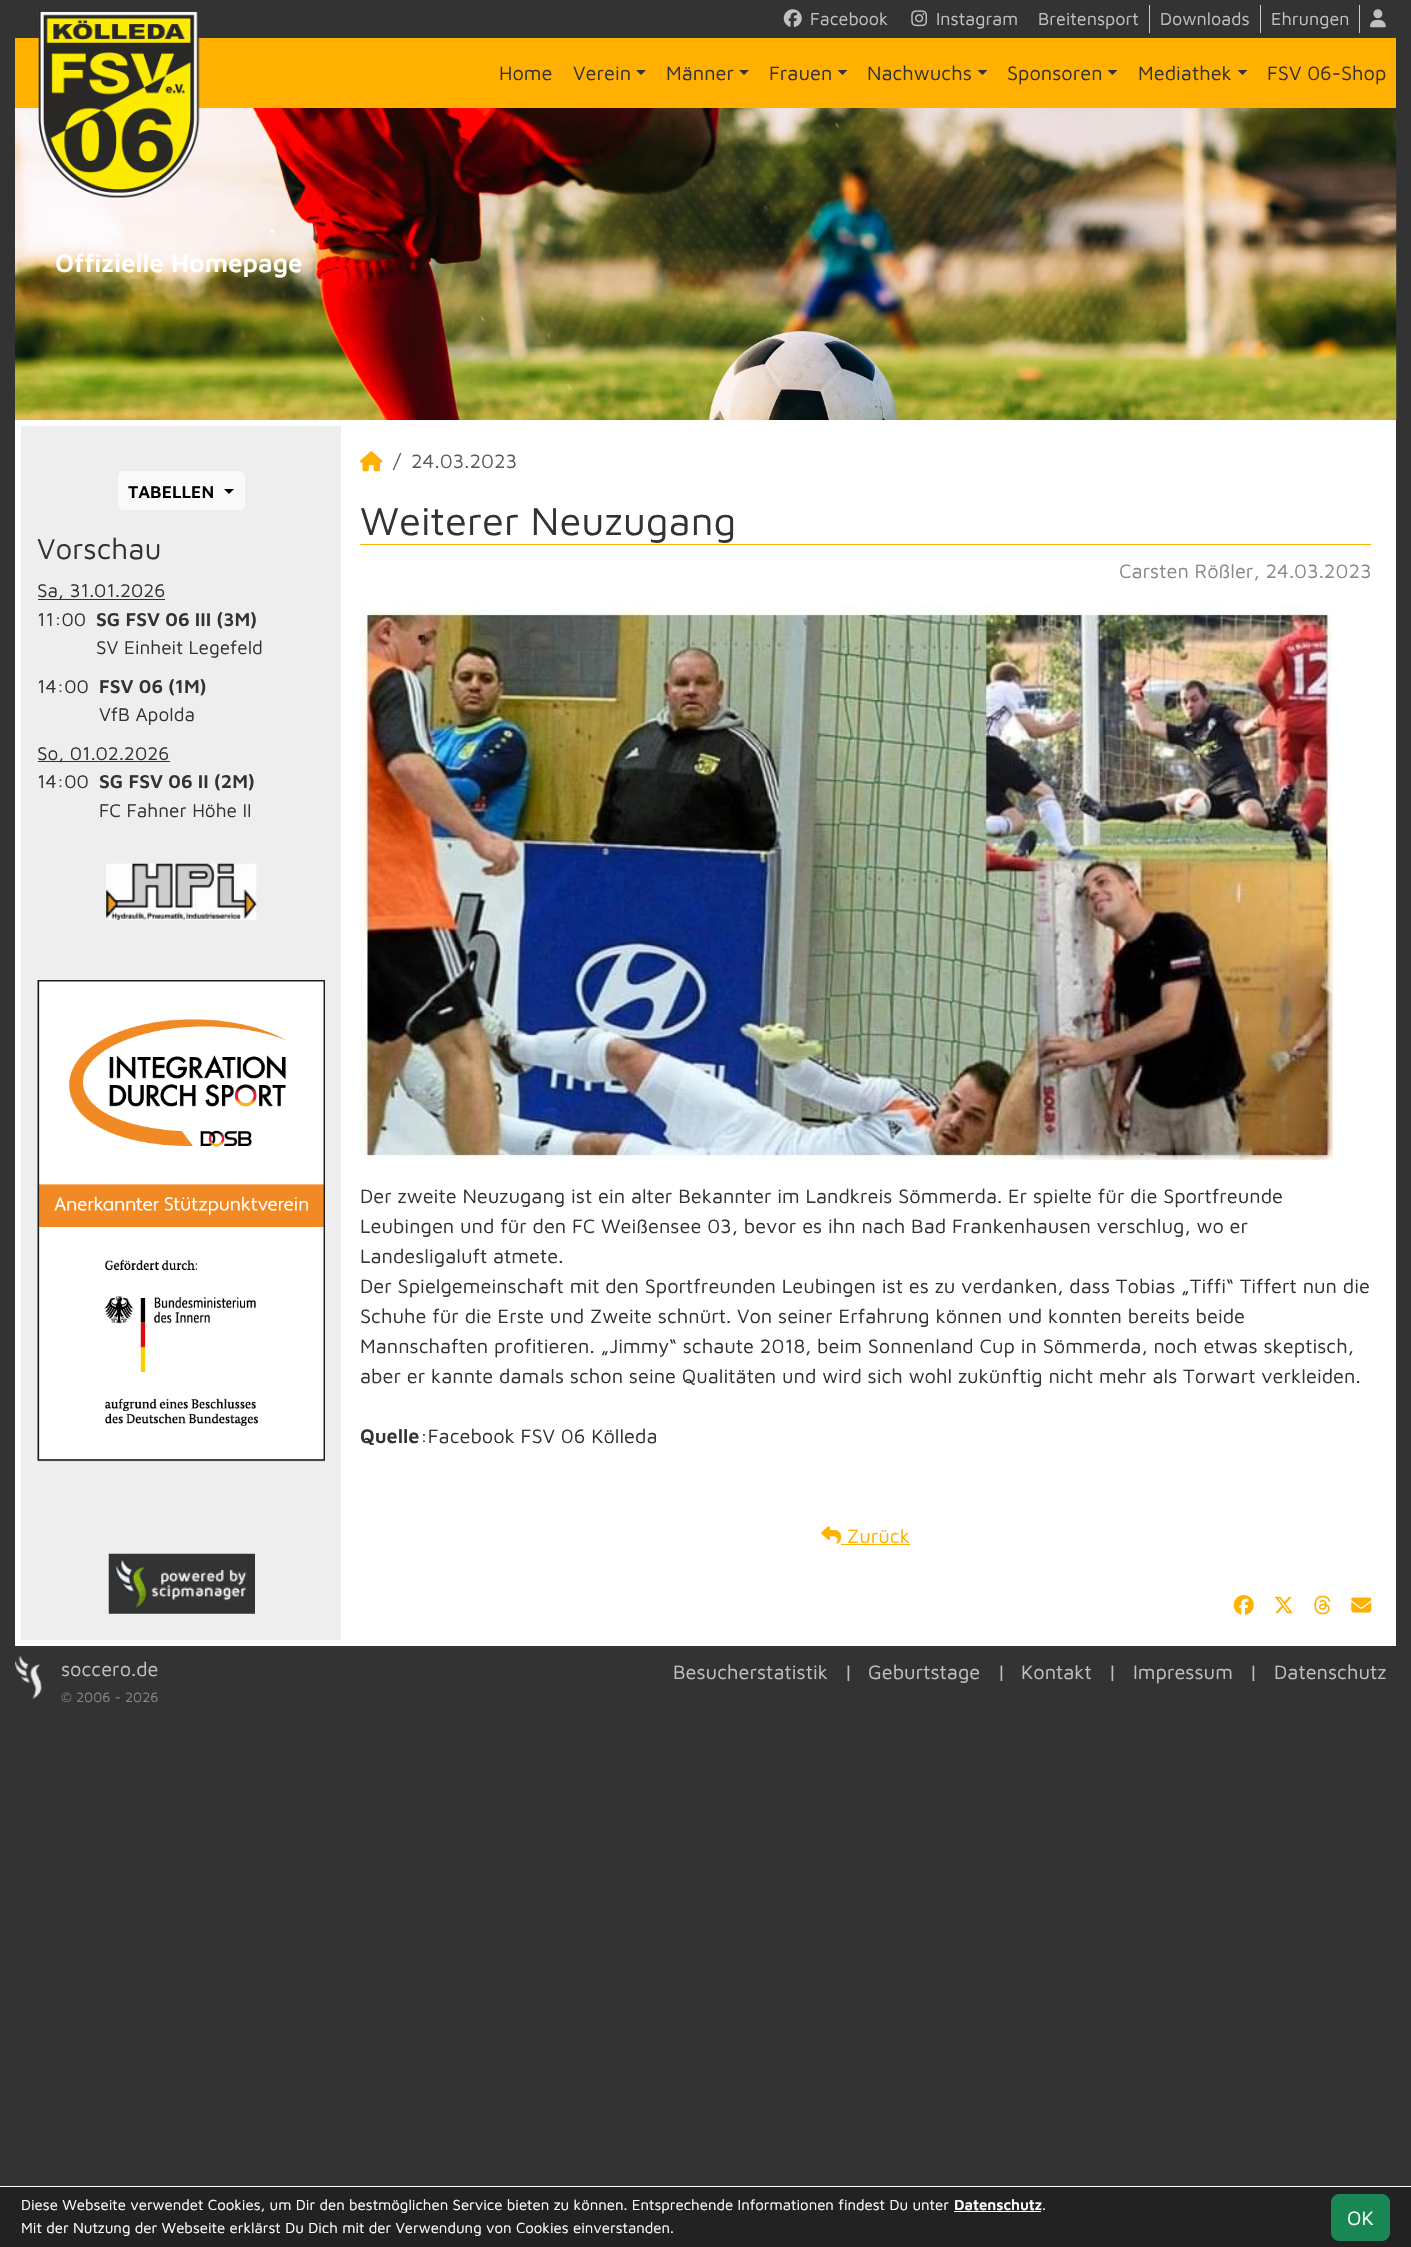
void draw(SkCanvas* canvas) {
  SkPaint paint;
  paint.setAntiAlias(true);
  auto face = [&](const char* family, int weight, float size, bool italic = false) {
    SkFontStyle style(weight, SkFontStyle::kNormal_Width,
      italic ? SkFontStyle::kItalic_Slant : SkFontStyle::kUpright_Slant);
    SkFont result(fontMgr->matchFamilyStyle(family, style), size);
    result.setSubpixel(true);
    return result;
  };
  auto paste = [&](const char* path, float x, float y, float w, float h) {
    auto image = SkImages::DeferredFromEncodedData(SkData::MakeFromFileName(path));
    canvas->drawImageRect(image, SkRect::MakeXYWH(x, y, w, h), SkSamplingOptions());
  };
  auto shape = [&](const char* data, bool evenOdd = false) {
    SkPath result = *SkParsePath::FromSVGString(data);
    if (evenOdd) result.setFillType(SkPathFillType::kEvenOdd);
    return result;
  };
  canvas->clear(0xff333333);
  paste("img/5.png", 15, 107, 1382, 313);
  paint.setColor(0xffffb000);
  canvas->drawRect(SkRect::MakeXYWH(15, 38, 1381, 70), paint);
  paste("img/1.png", 38, 10, 162, 188);
  paste("img/2.png", 783, 9, 19, 19);
  paste("img/3.png", 911, 10, 16, 17);
  {
    const struct { float x, y, w, h; SkColor color; } items[] = {
      {1149, 5, 1, 28, 0xffcccccc},
      {1260, 5, 1, 28, 0xffcccccc},
      {1359, 5, 1, 28, 0xffcccccc},
    };
    for (auto [x, y, w, h, color] : items) {
      paint.setColor(color);
      canvas->drawRect(SkRect::MakeXYWH(x, y, w, h), paint);
    }
  }
  paste("img/4.png", 1370, 9, 16, 19);
  paint.setColor(0xff333333);
  canvas->drawPath(shape("M636 70H646L641 75Z"), paint);
  canvas->drawPath(shape("M739 70H749L744 75Z"), paint);
  canvas->drawPath(shape("M837.5 70H847.5L842.5 75Z"), paint);
  canvas->drawPath(shape("M977.5 70H987.5L982.5 75Z"), paint);
  canvas->drawPath(shape("M1107.5 70H1117.5L1112.5 75Z"), paint);
  canvas->drawPath(shape("M1237.5 70H1247.5L1242.5 75Z"), paint);
  paint.setColor(0xffffffff);
  canvas->drawRect(SkRect::MakeXYWH(15, 420, 1381, 1226), paint);
  paint.setColor(0xffeeeeee);
  canvas->drawRect(SkRect::MakeXYWH(21, 426, 320, 1214), paint);
  paint.setColor(0xfff8f9fa);
  canvas->drawRoundRect(SkRect::MakeXYWH(118.5f, 471.5f, 126, 38), 4.5f, 4.5f, paint);
  paint.setStroke(true);
  paint.setStrokeWidth(1);
  canvas->drawRoundRect(SkRect::MakeXYWH(118.5f, 471.5f, 126, 38), 4.5f, 4.5f, paint);
  paint.setStroke(false);
  paint.setColor(0xff000000);
  canvas->drawPath(shape("M224 489H234L229 494Z"), paint);
  paint.setColor(0xff333333);
  canvas->drawRect(SkRect::MakeXYWH(38, 599, 127, 1), paint);
  canvas->drawRect(SkRect::MakeXYWH(38, 761, 132, 1), paint);
  paste("img/6.png", 106, 863, 151, 57);
  paste("img/7.png", 37, 980, 288, 482);
  paste("img/8.png", 108, 1553, 147, 61);
  paste("img/9.png", 360, 451, 23, 21);
  paint.setColor(0xffffb000);
  canvas->drawRect(SkRect::MakeXYWH(360, 544, 1011, 1), paint);
  paste("img/10.png", 360, 605, 973, 555);
  paste("img/11.png", 821, 1526, 21, 18);
  canvas->drawRect(SkRect::MakeXYWH(841, 1544, 69, 1), paint);
  paste("img/12.png", 1233, 1595, 21, 20);
  paste("img/13.png", 1275, 1596, 18, 18);
  paste("img/14.png", 1314, 1595, 17, 20);
  paste("img/15.png", 1351, 1597, 21, 16);
  paste("img/16.png", 15, 1656, 27, 43);
  {
    const struct { float x, y, w, h; SkColor color; } items[] = {
      {0, 2187, 1411, 60, 0xff222222},
      {0, 2186, 1411, 1, 0xffffffff},
      {954, 2211, 87, 1, 0xffffffff},
    };
    for (auto [x, y, w, h, color] : items) {
      paint.setColor(color);
      canvas->drawRect(SkRect::MakeXYWH(x, y, w, h), paint);
    }
  }
  paint.setColor(0xff198754);
  canvas->drawRoundRect(SkRect::MakeXYWH(1331.5f, 2194.5f, 58, 46), 7.5f, 7.5f, paint);
  paint.setStroke(true);
  canvas->drawRoundRect(SkRect::MakeXYWH(1331.5f, 2194.5f, 58, 46), 7.5f, 7.5f, paint);
  auto f0 = face("Maven Pro", 400, 18);
  paint.setStroke(false);
  paint.setColor(0xffc0c0c0);
  {
    const struct { const char* s; float x, y; } items[] = {
      {"Facebook", 810, 25},
      {"Instagram", 936, 25},
      {"Breitensport", 1038, 25},
      {"Downloads", 1160, 25},
      {"Ehrungen", 1271, 25},
    };
    for (auto [s, x, y] : items) {
      canvas->drawString(s, x, y, f0, paint);
    }
  }
  auto f1 = face("Maven Pro", 400, 20);
  paint.setColor(0xff333333);
  {
    const struct { const char* s; float x, y; } items[] = {
      {"Home", 499, 80},
      {"Verein", 573, 80},
      {"Männer", 666, 80},
      {"Frauen", 769, 80},
      {"Nachwuchs", 867, 80},
      {"Sponsoren", 1007, 80},
      {"Mediathek", 1138, 80},
      {"FSV 06-Shop", 1267, 80},
    };
    for (auto [s, x, y] : items) {
      canvas->drawString(s, x, y, f1, paint);
    }
  }
  auto f2 = face("Maven Pro", 600, 24);
  paint.setColor(0xffffffff);
  canvas->drawString(".", 269, 233, f2, paint);
  auto f3 = face("Maven Pro", 600, 26);
  canvas->drawString("Offizielle Homepage", 55, 272, f3, paint);
  auto f4 = face("Maven Pro", 600, 17.5f);
  paint.setColor(0xff000000);
  canvas->drawString("TABELLEN", 128, 498, f4, paint);
  auto f5 = face("Maven Pro", 400, 29.5f);
  paint.setColor(0xff333333);
  canvas->drawString("Vorschau", 37, 559, f5, paint);
  auto f6 = face("Maven Pro", 400, 19);
  canvas->drawString("Sa, 31.01.2026", 37, 597, f6, paint);
  canvas->drawString("11:00", 37, 626, f6, paint);
  auto f7 = face("Maven Pro", 600, 19);
  canvas->drawString("SG FSV 06 III (3M)", 96, 626, f7, paint);
  canvas->drawString("SV Einheit Legefeld", 96, 654, f6, paint);
  canvas->drawString("14:00", 37, 693, f6, paint);
  canvas->drawString("FSV 06 (1M)", 99, 693, f7, paint);
  {
    const struct { const char* s; float x, y; } items[] = {
      {"VfB Apolda", 99, 721},
      {"So, 01.02.2026", 37, 760},
      {"14:00", 37, 788},
    };
    for (auto [s, x, y] : items) {
      canvas->drawString(s, x, y, f6, paint);
    }
  }
  canvas->drawString("SG FSV 06 II (2M)", 99, 788, f7, paint);
  canvas->drawString("FC Fahner Höhe II", 99, 817, f6, paint);
  paint.setColor(0xff595c5f);
  canvas->drawString("/", 393, 468, f1, paint);
  canvas->drawString("24.03.2023", 411, 468, f1, paint);
  auto f8 = face("Maven Pro", 400, 40);
  paint.setColor(0xff333333);
  canvas->drawString("Weiterer Neuzugang", 360, 535, f8, paint);
  paint.setColor(0xff888888);
  canvas->drawString("Carsten Rößler, 24.03.2023", 1119, 578, f1, paint);
  paint.setColor(0xff333333);
  {
    const struct { const char* s; float x, y; } items[] = {
      {"Der zweite Neuzugang ist ein alter Bekannter im Landkreis Sömmerda. Er spielte für die Sportfreunde", 360, 1203},
      {"Leubingen und für den FC Weißensee 03, bevor es ihn nach Bad Frankenhausen verschlug, wo er", 360, 1233},
      {"Landesligaluft atmete.", 360, 1263},
      {"Der Spielgemeinschaft mit den Sportfreunden Leubingen ist es zu verdanken, dass Tobias „Tiffi“ Tiffert nun die", 360, 1293},
      {"Schuhe für die Erste und Zweite schnürt. Von seiner Erfahrung können und konnten bereits beide", 360, 1323},
      {"Mannschaften profitieren. „Jimmy“ schaute 2018, beim Sonnenland Cup in Sömmerda, noch etwas skeptisch,", 360, 1353},
      {"aber er kannte damals schon seine Qualitäten und wird sich wohl zukünftig nicht mehr als Torwart verkleiden.", 360, 1383},
    };
    for (auto [s, x, y] : items) {
      canvas->drawString(s, x, y, f1, paint);
    }
  }
  auto f9 = face("Maven Pro", 600, 20);
  canvas->drawString("Quelle", 360, 1443, f9, paint);
  canvas->drawString(":Facebook FSV 06 Kölleda", 420, 1443, f1, paint);
  paint.setColor(0xffffb000);
  canvas->drawString("Zurück", 847, 1543, f1, paint);
  paint.setColor(0xffc0c0c0);
  canvas->drawString("soccero.de", 61, 1676, f1, paint);
  auto f10 = face("Maven Pro", 400, 14);
  paint.setColor(0xff888888);
  canvas->drawString("© 2006 - 2026", 61, 1702, f10, paint);
  paint.setColor(0xffc0c0c0);
  {
    const struct { const char* s; float x, y; } items[] = {
      {"Besucherstatistik", 673, 1679},
      {"|", 844, 1679},
      {"Geburtstage", 868, 1679},
      {"|", 997, 1679},
      {"Kontakt", 1021, 1679},
      {"|", 1108, 1679},
      {"Impressum", 1133, 1679},
      {"|", 1249, 1679},
      {"Datenschutz", 1274, 1679},
    };
    for (auto [s, x, y] : items) {
      canvas->drawString(s, x, y, f1, paint);
    }
  }
  auto f11 = face("Maven Pro", 400, 15);
  paint.setColor(0xffffffff);
  canvas->drawString("Diese Webseite verwendet Cookies, um Dir den bestmöglichen Service bieten zu können. Entsprechende Informationen findest Du unter", 21, 2210, f11, paint);
  auto f12 = face("Maven Pro", 600, 15);
  canvas->drawString("Datenschutz", 954, 2210, f12, paint);
  canvas->drawString(".", 1042, 2210, f11, paint);
  canvas->drawString("Mit der Nutzung der Webseite erklärst Du Dich mit der Verwendung von Cookies einverstanden.", 21, 2233, f11, paint);
  canvas->drawString("OK", 1347, 2225, f1, paint);
}
